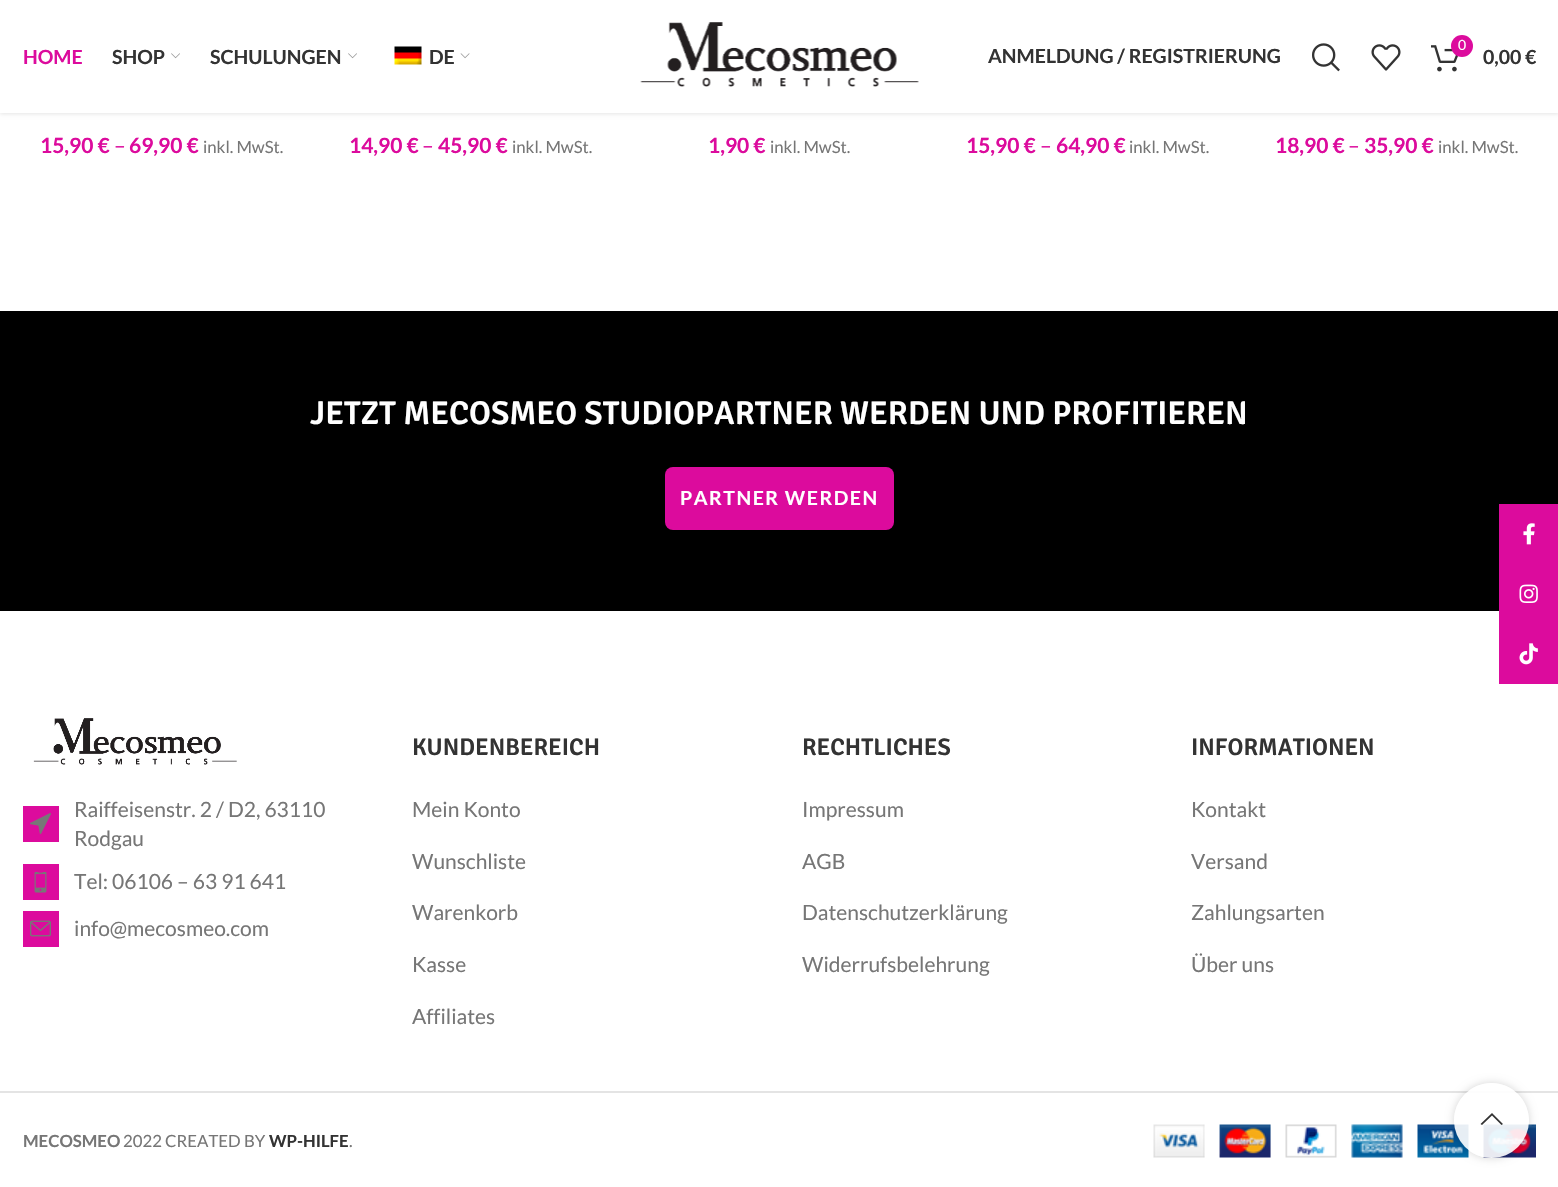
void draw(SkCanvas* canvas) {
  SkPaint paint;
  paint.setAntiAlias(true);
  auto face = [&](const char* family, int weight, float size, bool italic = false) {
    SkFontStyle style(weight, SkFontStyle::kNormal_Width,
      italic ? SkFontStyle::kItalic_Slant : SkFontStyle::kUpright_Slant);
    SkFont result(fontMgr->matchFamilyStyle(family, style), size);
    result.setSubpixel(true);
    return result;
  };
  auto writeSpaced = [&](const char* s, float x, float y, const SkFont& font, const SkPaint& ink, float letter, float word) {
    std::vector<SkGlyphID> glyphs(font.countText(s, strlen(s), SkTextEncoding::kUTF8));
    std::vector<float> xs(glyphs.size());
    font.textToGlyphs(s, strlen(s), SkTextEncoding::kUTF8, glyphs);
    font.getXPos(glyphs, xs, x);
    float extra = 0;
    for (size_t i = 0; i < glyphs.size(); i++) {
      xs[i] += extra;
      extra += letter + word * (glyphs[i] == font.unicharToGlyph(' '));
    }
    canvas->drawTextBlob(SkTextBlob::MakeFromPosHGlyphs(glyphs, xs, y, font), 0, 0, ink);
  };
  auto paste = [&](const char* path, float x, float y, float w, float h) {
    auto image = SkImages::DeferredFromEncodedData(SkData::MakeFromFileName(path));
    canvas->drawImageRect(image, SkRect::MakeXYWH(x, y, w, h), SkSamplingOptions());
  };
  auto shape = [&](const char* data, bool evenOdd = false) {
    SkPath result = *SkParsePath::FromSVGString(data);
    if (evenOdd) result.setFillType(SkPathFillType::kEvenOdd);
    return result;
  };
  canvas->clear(0xffffffff);
  paint.setColor(0x1a000000);
  paint.setMaskFilter(SkMaskFilter::MakeBlur(kNormal_SkBlurStyle, 2));
  canvas->drawRect(SkRect::MakeXYWH(0, 2, 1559, 112), paint);
  paint.setMaskFilter(nullptr);
  paint.setColor(0xffffffff);
  canvas->drawRect(SkRect::MakeXYWH(0, 0, 1558, 113), paint);
  paste("img/1.png", 171, 53, 9, 6);
  paste("img/1.png", 348, 53, 9, 6);
  paste("img/2.png", 394, 46, 28, 19);
  paste("img/3.png", 460, 53, 10, 6);
  paste("img/4.png", 640, 22, 279, 65);
  paste("img/5.png", 1312, 43, 28, 29);
  paste("img/6.png", 1371, 44, 30, 27);
  paste("img/7.png", 1431, 45, 27, 27);
  paint.setColor(0xffdc0b9d);
  canvas->drawCircle(1462, 46, 11, paint);
  paint.setColor(0xff000000);
  canvas->drawRect(SkRect::MakeXYWH(0, 311, 1558, 300), paint);
  paint.setColor(0xffdc0b9d);
  canvas->drawRoundRect(SkRect::MakeXYWH(665, 467, 229, 63), 8, 8, paint);
  paste("img/8.png", 33, 718, 204, 47);
  canvas->drawRect(SkRect::MakeXYWH(23, 806, 36, 36), paint);
  paste("img/9.png", 30, 813, 21, 21);
  canvas->drawRect(SkRect::MakeXYWH(23, 864, 36, 36), paint);
  paste("img/10.png", 34, 872, 13, 21);
  canvas->drawRect(SkRect::MakeXYWH(23, 911, 36, 36), paint);
  paste("img/11.png", 30, 920, 21, 17);
  paint.setColor(0xffe4e4e4);
  canvas->drawRect(SkRect::MakeXYWH(0, 1091, 1558, 2), paint);
  paste("img/12.png", 1153, 1124, 383, 34);
  paint.setColor(0xffdc0b9d);
  canvas->drawRect(SkRect::MakeXYWH(1499, 504, 59, 180), paint);
  paste("img/13.png", 1523, 523, 12, 22);
  paste("img/14.png", 1519, 584, 19, 19);
  paste("img/15.png", 1519, 643, 19, 22);
  canvas->save();
  canvas->clipPath(shape("M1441 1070H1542V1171H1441ZM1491.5 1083C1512 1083 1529 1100 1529 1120.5C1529 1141 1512 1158 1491.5 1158C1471 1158 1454 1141 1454 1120.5C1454 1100 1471 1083 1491.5 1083Z", true), true);
  paint.setColor(0x2b000000);
  paint.setMaskFilter(SkMaskFilter::MakeBlur(kNormal_SkBlurStyle, 4));
  canvas->drawRoundRect(SkRect::MakeXYWH(1454, 1083, 75, 75), 37.5f, 37.5f, paint);
  paint.setMaskFilter(nullptr);
  canvas->restore();
  paint.setColor(0xe6ffffff);
  canvas->drawCircle(1491.5f, 1120.5f, 37.5f, paint);
  paint.setColor(0xff333333);
  canvas->drawPath(shape("M1501.5 1125L1503 1124L1492 1113L1480.5 1124L1482 1125L1492 1115.5Z"), paint);
  auto f0 = face("Lato", 700, 19.5f);
  paint.setColor(0xffdc0b9d);
  canvas->drawString("HOME", 23, 64, f0, paint);
  paint.setColor(0xff333333);
  {
    const struct { const char* s; float x, y; } items[] = {
      {"SHOP", 112, 64},
      {"SCHULUNGEN", 210, 64},
      {"DE", 429, 64},
      {"ANMELDUNG / REGISTRIERUNG", 988, 63},
    };
    for (auto [s, x, y] : items) {
      canvas->drawString(s, x, y, f0, paint);
    }
  }
  auto f1 = face("Lato", 400, 14);
  paint.setColor(0xffffffff);
  canvas->drawString("0", 1458, 50, f1, paint);
  paint.setColor(0xff333333);
  canvas->drawString("0,00 €", 1483, 64, f0, paint);
  auto f2 = face("Lato", 700, 21);
  paint.setColor(0xffdc0b9d);
  canvas->drawString("15,90 €", 40, 153, f2, paint);
  auto f3 = face("Lato", 400, 21);
  canvas->drawString("–", 114, 153, f3, paint);
  canvas->drawString("69,90 €", 129, 153, f2, paint);
  auto f4 = face("Lato", 400, 16.75f);
  paint.setColor(0xff767676);
  canvas->drawString("inkl. MwSt.", 203, 153, f4, paint);
  paint.setColor(0xffdc0b9d);
  canvas->drawString("14,90 €", 349, 153, f2, paint);
  canvas->drawString("–", 422, 153, f3, paint);
  canvas->drawString("45,90 €", 438, 153, f2, paint);
  paint.setColor(0xff767676);
  canvas->drawString("inkl. MwSt.", 512, 153, f4, paint);
  paint.setColor(0xffdc0b9d);
  canvas->drawString("1,90 €", 708, 153, f2, paint);
  paint.setColor(0xff767676);
  canvas->drawString("inkl. MwSt.", 770, 153, f4, paint);
  paint.setColor(0xffdc0b9d);
  canvas->drawString("15,90 €", 966, 153, f2, paint);
  canvas->drawString("–", 1040, 153, f3, paint);
  canvas->drawString("64,90 €", 1056, 153, f2, paint);
  paint.setColor(0xff767676);
  canvas->drawString("inkl. MwSt.", 1129, 153, f4, paint);
  paint.setColor(0xffdc0b9d);
  canvas->drawString("18,90 €", 1275, 153, f2, paint);
  canvas->drawString("–", 1348, 153, f3, paint);
  canvas->drawString("35,90 €", 1364, 153, f2, paint);
  paint.setColor(0xff767676);
  canvas->drawString("inkl. MwSt.", 1438, 153, f4, paint);
  auto f5 = face("Signika", 600, 33);
  paint.setColor(0xffffffff);
  canvas->drawString("JETZT MECOSMEO STUDIOPARTNER WERDEN UND PROFITIEREN", 310, 424, f5, paint);
  writeSpaced("PARTNER WERDEN", 680, 505, f0, paint, 1.5f, 0);
  paint.setColor(0xff767676);
  {
    const struct { const char* s; float x, y; } items[] = {
      {"Raiffeisenstr. 2 / D2, 63110", 74, 817},
      {"Rodgau", 74, 846},
      {"Tel: 06106 – 63 91 641", 74, 889},
      {"info@mecosmeo.com", 74, 936},
    };
    for (auto [s, x, y] : items) {
      canvas->drawString(s, x, y, f3, paint);
    }
  }
  auto f6 = face("Signika", 600, 24);
  paint.setColor(0xff333333);
  canvas->drawString("KUNDENBEREICH", 412, 755, f6, paint);
  paint.setColor(0xff767676);
  {
    const struct { const char* s; float x, y; } items[] = {
      {"Mein Konto", 412, 817},
      {"Wunschliste", 412, 869},
      {"Warenkorb", 412, 920},
      {"Kasse", 412, 972},
      {"Affiliates", 412, 1024},
    };
    for (auto [s, x, y] : items) {
      canvas->drawString(s, x, y, f3, paint);
    }
  }
  paint.setColor(0xff333333);
  canvas->drawString("RECHTLICHES", 802, 755, f6, paint);
  paint.setColor(0xff767676);
  {
    const struct { const char* s; float x, y; } items[] = {
      {"Impressum", 802, 817},
      {"AGB", 802, 869},
      {"Datenschutzerklärung", 802, 920},
      {"Widerrufsbelehrung", 802, 972},
    };
    for (auto [s, x, y] : items) {
      canvas->drawString(s, x, y, f3, paint);
    }
  }
  paint.setColor(0xff333333);
  canvas->drawString("INFORMATIONEN", 1191, 755, f6, paint);
  paint.setColor(0xff767676);
  {
    const struct { const char* s; float x, y; } items[] = {
      {"Kontakt", 1191, 817},
      {"Versand", 1191, 869},
      {"Zahlungsarten", 1191, 920},
      {"Über uns", 1191, 972},
    };
    for (auto [s, x, y] : items) {
      canvas->drawString(s, x, y, f3, paint);
    }
  }
  auto f7 = face("Lato", 700, 16.75f);
  canvas->drawString("MECOSMEO", 23, 1147, f7, paint);
  canvas->drawString("2022 CREATED BY", 123, 1147, f4, paint);
  paint.setColor(0xff333333);
  canvas->drawString("WP-HILFE", 269, 1147, f7, paint);
  paint.setColor(0xff767676);
  canvas->drawString(".", 349, 1147, f4, paint);
}
